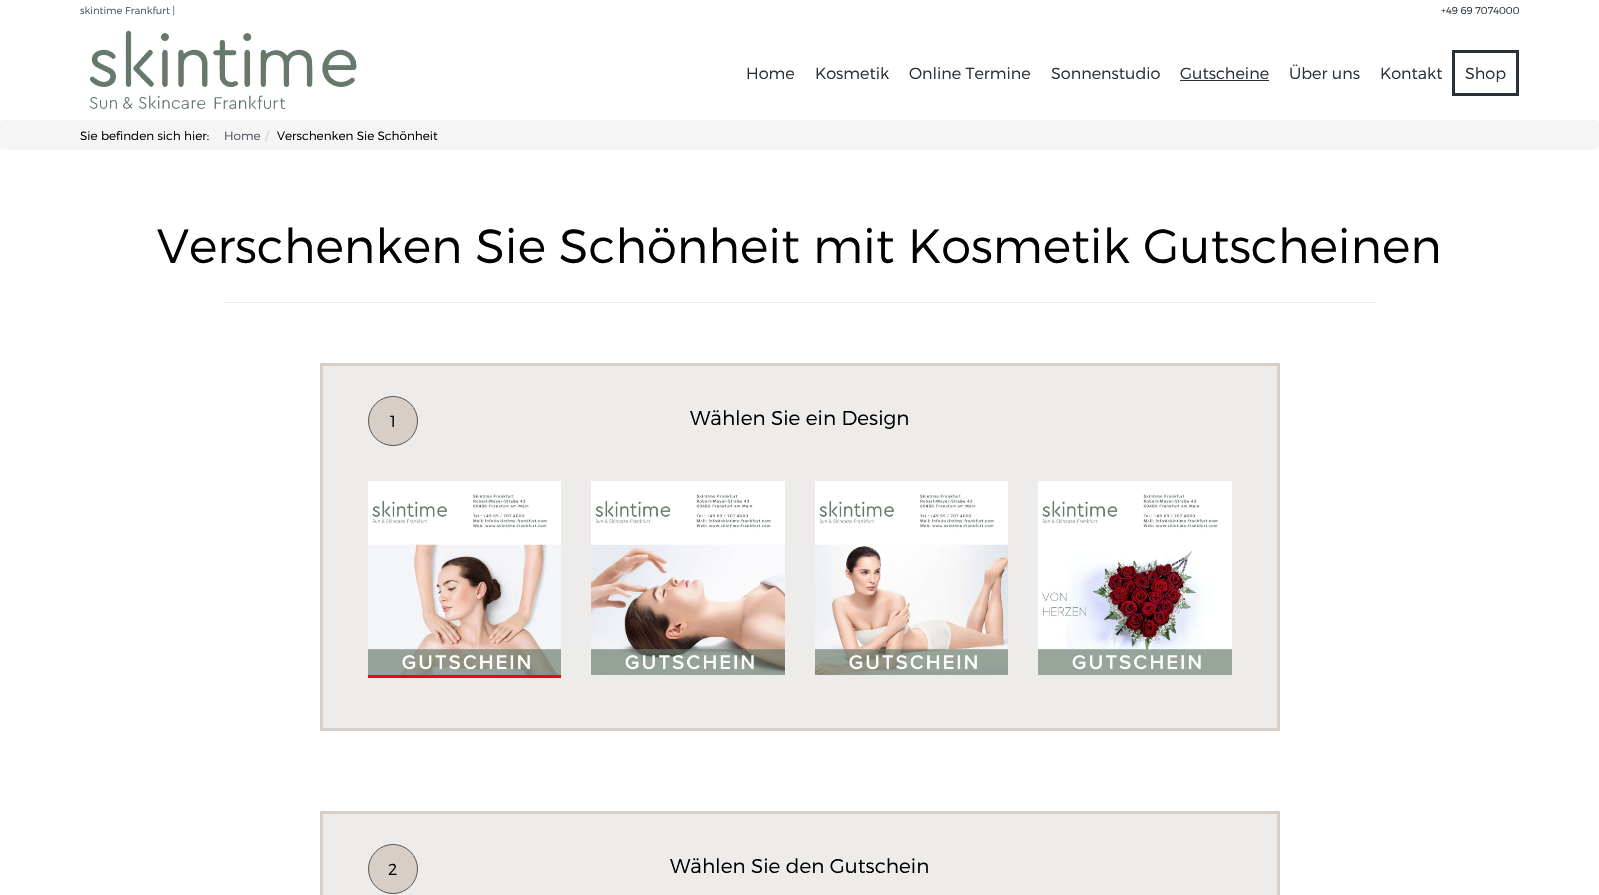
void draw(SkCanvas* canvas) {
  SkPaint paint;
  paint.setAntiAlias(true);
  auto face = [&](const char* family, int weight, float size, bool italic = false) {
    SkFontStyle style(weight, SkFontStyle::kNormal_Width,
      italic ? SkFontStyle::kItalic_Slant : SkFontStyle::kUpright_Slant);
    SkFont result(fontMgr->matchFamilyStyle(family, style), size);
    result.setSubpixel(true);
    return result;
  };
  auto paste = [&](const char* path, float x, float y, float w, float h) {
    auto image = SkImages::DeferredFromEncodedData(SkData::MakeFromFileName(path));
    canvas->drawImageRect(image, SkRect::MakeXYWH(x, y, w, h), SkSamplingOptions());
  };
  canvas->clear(0xffffffff);
  paste("img/1.png", 89, 30, 268, 80);
  paint.setColor(0xff293138);
  canvas->drawRect(SkRect::MakeXYWH(1180, 80, 89, 1), paint);
  paint.setStroke(true);
  paint.setStrokeWidth(3);
  canvas->drawRect(SkRect::MakeXYWH(1453.5f, 51.5f, 64, 43), paint);
  paint.setStroke(false);
  paint.setColor(0xfff5f5f5);
  canvas->drawRoundRect(SkRect::MakeXYWH(0, 120, 1599, 30), 4, 4, paint);
  paint.setColor(0xffeeeeee);
  canvas->drawRect(SkRect::MakeXYWH(224, 302, 1152, 1), paint);
  paint.setColor(0xffeeecea);
  canvas->drawRect(SkRect::MakeXYWH(321.5f, 364.5f, 957, 365), paint);
  paint.setStroke(true);
  paint.setColor(0xffd7cec8);
  canvas->drawRect(SkRect::MakeXYWH(321.5f, 364.5f, 957, 365), paint);
  paint.setStroke(false);
  canvas->drawCircle(393, 421, 24.5f, paint);
  paint.setStroke(true);
  paint.setStrokeWidth(1);
  paint.setColor(0xff555555);
  canvas->drawCircle(393, 421, 24.5f, paint);
  paste("img/2.png", 368, 481, 193, 194);
  paint.setStroke(false);
  paint.setColor(0xffff0000);
  canvas->drawRect(SkRect::MakeXYWH(368, 675, 193, 3), paint);
  paste("img/3.png", 591, 481, 194, 194);
  paste("img/4.png", 815, 481, 193, 194);
  paste("img/5.png", 1038, 481, 194, 194);
  paint.setColor(0xffeeecea);
  canvas->drawRect(SkRect::MakeXYWH(321.5f, 812.5f, 957, 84), paint);
  paint.setStroke(true);
  paint.setStrokeWidth(3);
  paint.setColor(0xffd7cec8);
  canvas->drawRect(SkRect::MakeXYWH(321.5f, 812.5f, 957, 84), paint);
  paint.setStroke(false);
  canvas->drawCircle(393, 869, 24.5f, paint);
  paint.setStroke(true);
  paint.setStrokeWidth(1);
  paint.setColor(0xff555555);
  canvas->drawCircle(393, 869, 24.5f, paint);
  auto f0 = face("Montserrat", 300, 10);
  paint.setStroke(false);
  paint.setColor(0xff4d5760);
  canvas->drawString("skintime Frankfurt |", 80, 14, f0, paint);
  paint.setColor(0xff293138);
  canvas->drawString("+49 69 7074000", 1441, 14, f0, paint);
  auto f1 = face("Montserrat", 300, 16);
  {
    const struct { const char* s; float x, y; } items[] = {
      {"Home", 746, 79},
      {"Kosmetik", 815, 79},
      {"Online Termine", 909, 79},
      {"Sonnenstudio", 1051, 79},
      {"Gutscheine", 1180, 79},
      {"Über uns", 1289, 79},
      {"Kontakt", 1380, 79},
      {"Shop", 1465, 79},
    };
    for (auto [s, x, y] : items) {
      canvas->drawString(s, x, y, f1, paint);
    }
  }
  auto f2 = face("Montserrat", 300, 12);
  paint.setColor(0xff000000);
  canvas->drawString("Sie befinden sich hier:", 80, 140, f2, paint);
  paint.setColor(0xff4d5760);
  canvas->drawString("Home", 224, 140, f2, paint);
  paint.setColor(0xffcccccc);
  canvas->drawString("/", 265, 140, f2, paint);
  paint.setColor(0xff000000);
  canvas->drawString("Verschenken Sie Schönheit", 277, 140, f2, paint);
  auto f3 = face("Montserrat", 300, 48);
  canvas->drawString("Verschenken Sie Schönheit mit Kosmetik Gutscheinen", 157, 263, f3, paint);
  canvas->drawString("1", 390, 427, f1, paint);
  auto f4 = face("Montserrat", 300, 20);
  canvas->drawString("Wählen Sie ein Design", 690, 425, f4, paint);
  canvas->drawString("2", 388, 875, f1, paint);
  canvas->drawString("Wählen Sie den Gutschein", 670, 873, f4, paint);
}
